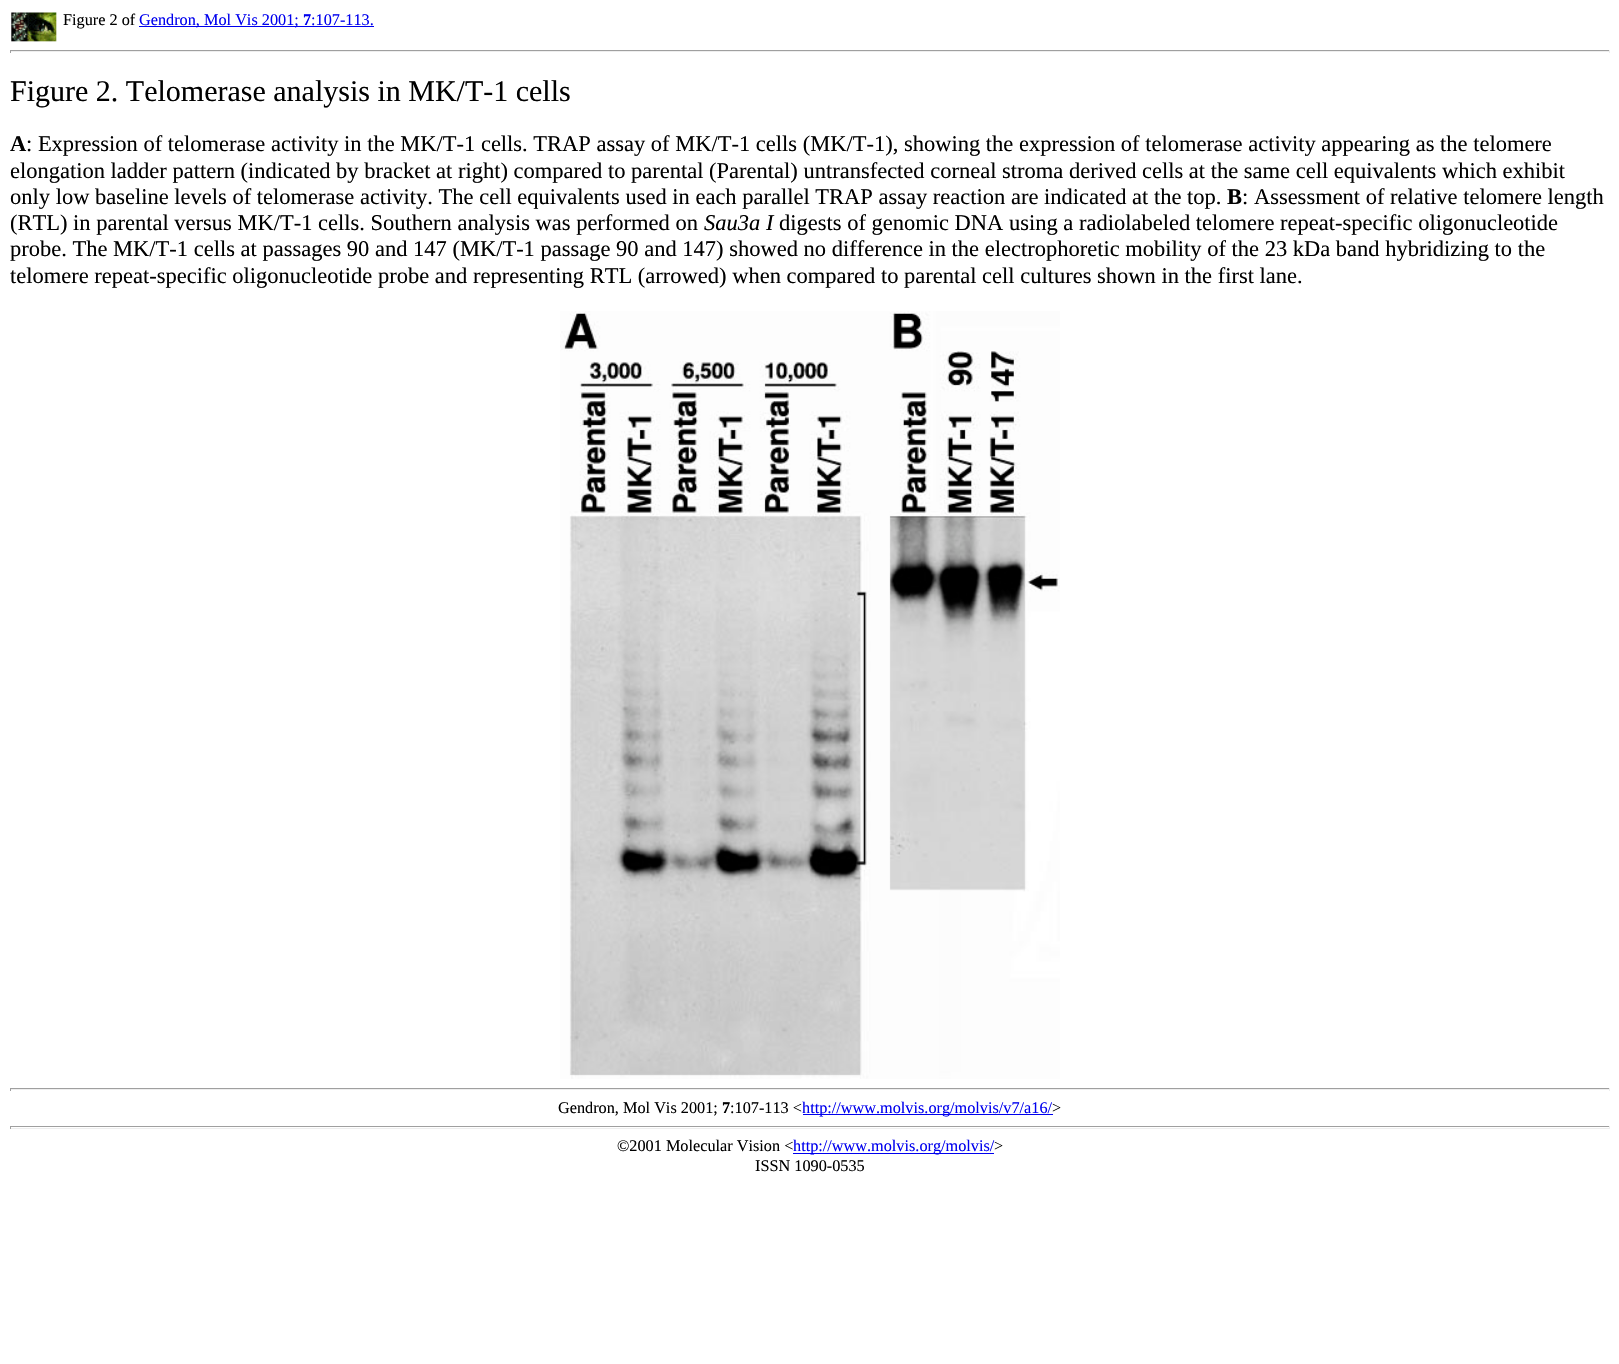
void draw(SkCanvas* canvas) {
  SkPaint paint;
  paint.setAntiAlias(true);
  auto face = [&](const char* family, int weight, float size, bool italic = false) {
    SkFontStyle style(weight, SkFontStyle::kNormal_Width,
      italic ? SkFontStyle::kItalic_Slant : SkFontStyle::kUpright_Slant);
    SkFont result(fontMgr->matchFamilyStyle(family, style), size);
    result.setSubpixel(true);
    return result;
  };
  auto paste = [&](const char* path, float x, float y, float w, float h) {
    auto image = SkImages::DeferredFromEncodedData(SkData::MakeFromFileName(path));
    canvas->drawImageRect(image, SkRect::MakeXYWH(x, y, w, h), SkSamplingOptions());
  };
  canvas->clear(0xffffffff);
  paste("img/1.png", 11, 12, 46, 30);
  {
    const struct { float x, y, w, h; SkColor color; } items[] = {
      {139, 26, 235, 1, 0xff0000ee},
      {10, 50, 1600, 1, 0xff9f9f9f},
      {1609, 50, 1, 3, 0xffeeeeee},
      {10, 51, 1600, 1, 0xffeeeeee},
      {10, 50, 1, 3, 0xff9f9f9f},
    };
    for (auto [x, y, w, h, color] : items) {
      paint.setColor(color);
      canvas->drawRect(SkRect::MakeXYWH(x, y, w, h), paint);
    }
  }
  paste("img/2.png", 560, 311, 500, 768);
  {
    const struct { float x, y, w, h; SkColor color; } items[] = {
      {10, 1088, 1600, 1, 0xff9f9f9f},
      {1609, 1088, 1, 3, 0xffeeeeee},
      {10, 1089, 1600, 1, 0xffeeeeee},
      {10, 1088, 1, 3, 0xff9f9f9f},
      {803, 1114, 250, 1, 0xff0000ee},
      {10, 1126, 1600, 1, 0xff9f9f9f},
      {1609, 1126, 1, 3, 0xffeeeeee},
      {10, 1128, 1600, 1, 0xffeeeeee},
      {10, 1126, 1, 3, 0xff9f9f9f},
      {793, 1153, 201, 1, 0xff0000ee},
    };
    for (auto [x, y, w, h, color] : items) {
      paint.setColor(color);
      canvas->drawRect(SkRect::MakeXYWH(x, y, w, h), paint);
    }
  }
  auto f0 = face("Liberation Serif", 400, 16.25f);
  paint.setColor(0xff000000);
  canvas->drawString("Figure 2 of", 63, 25, f0, paint);
  paint.setColor(0xff0000ee);
  canvas->drawString("Gendron, Mol Vis 2001;", 139, 25, f0, paint);
  auto f1 = face("Liberation Serif", 700, 16.25f);
  canvas->drawString("7", 303, 25, f1, paint);
  canvas->drawString(":107-113.", 311, 25, f0, paint);
  auto f2 = face("Liberation Serif", 400, 30);
  paint.setColor(0xff000000);
  canvas->drawString("Figure 2. Telomerase analysis in MK/T-1 cells", 10, 101, f2, paint);
  auto f3 = face("Liberation Serif", 700, 22.5f);
  canvas->drawString("A", 10, 151, f3, paint);
  auto f4 = face("Liberation Serif", 400, 22.5f);
  {
    const struct { const char* s; float x, y; } items[] = {
      {": Expression of telomerase activity in the MK/T-1 cells. TRAP assay of MK/T-1 cells (MK/T-1), showing the expression of telomerase activity appearing as the telomere", 26, 151},
      {"elongation ladder pattern (indicated by bracket at right) compared to parental (Parental) untransfected corneal stroma derived cells at the same cell equivalents which exhibit", 10, 178},
      {"only low baseline levels of telomerase activity. The cell equivalents used in each parallel TRAP assay reaction are indicated at the top.", 10, 204},
    };
    for (auto [s, x, y] : items) {
      canvas->drawString(s, x, y, f4, paint);
    }
  }
  canvas->drawString("B", 1227, 204, f3, paint);
  canvas->drawString(": Assessment of relative telomere length", 1242, 204, f4, paint);
  canvas->drawString("(RTL) in parental versus MK/T-1 cells. Southern analysis was performed on", 10, 230, f4, paint);
  auto f5 = face("Liberation Serif", 400, 22.5f, true);
  canvas->drawString("Sau3a I", 704, 230, f5, paint);
  {
    const struct { const char* s; float x, y; } items[] = {
      {"digests of genomic DNA using a radiolabeled telomere repeat-specific oligonucleotide", 779, 230},
      {"probe. The MK/T-1 cells at passages 90 and 147 (MK/T-1 passage 90 and 147) showed no difference in the electrophoretic mobility of the 23 kDa band hybridizing to the", 10, 256},
      {"telomere repeat-specific oligonucleotide probe and representing RTL (arrowed) when compared to parental cell cultures shown in the first lane.", 10, 283},
    };
    for (auto [s, x, y] : items) {
      canvas->drawString(s, x, y, f4, paint);
    }
  }
  canvas->drawString("Gendron, Mol Vis 2001;", 558, 1113, f0, paint);
  canvas->drawString("7", 722, 1113, f1, paint);
  canvas->drawString(":107-113 <", 730, 1113, f0, paint);
  paint.setColor(0xff0000ee);
  canvas->drawString("http://www.molvis.org/molvis/v7/a16/", 802, 1113, f0, paint);
  paint.setColor(0xff000000);
  canvas->drawString(">", 1052, 1113, f0, paint);
  canvas->drawString("©2001 Molecular Vision <", 617, 1151, f0, paint);
  paint.setColor(0xff0000ee);
  canvas->drawString("http://www.molvis.org/molvis/", 793, 1151, f0, paint);
  paint.setColor(0xff000000);
  canvas->drawString(">", 994, 1151, f0, paint);
  canvas->drawString("ISSN 1090-0535", 755, 1171, f0, paint);
}
